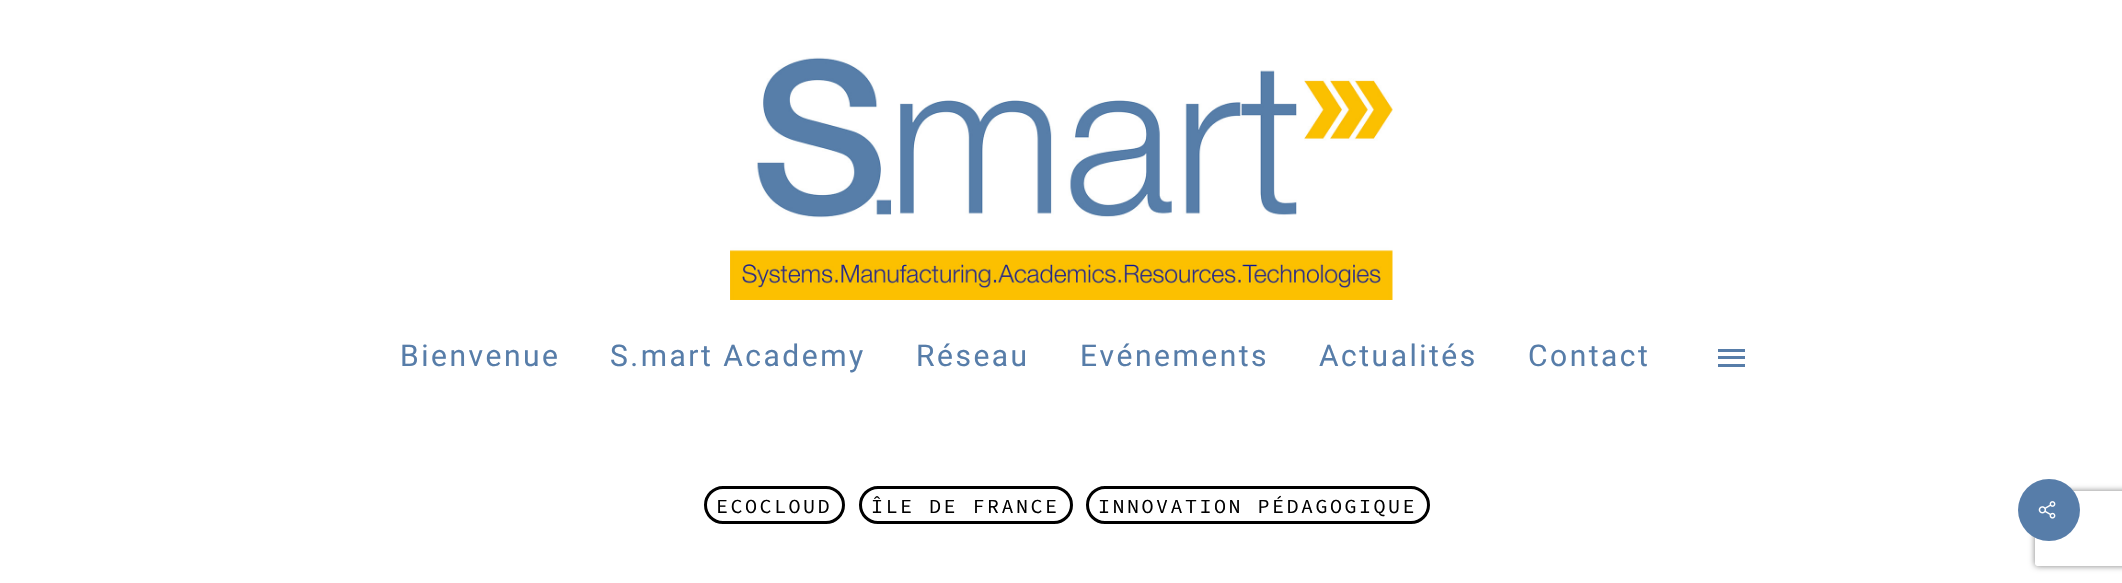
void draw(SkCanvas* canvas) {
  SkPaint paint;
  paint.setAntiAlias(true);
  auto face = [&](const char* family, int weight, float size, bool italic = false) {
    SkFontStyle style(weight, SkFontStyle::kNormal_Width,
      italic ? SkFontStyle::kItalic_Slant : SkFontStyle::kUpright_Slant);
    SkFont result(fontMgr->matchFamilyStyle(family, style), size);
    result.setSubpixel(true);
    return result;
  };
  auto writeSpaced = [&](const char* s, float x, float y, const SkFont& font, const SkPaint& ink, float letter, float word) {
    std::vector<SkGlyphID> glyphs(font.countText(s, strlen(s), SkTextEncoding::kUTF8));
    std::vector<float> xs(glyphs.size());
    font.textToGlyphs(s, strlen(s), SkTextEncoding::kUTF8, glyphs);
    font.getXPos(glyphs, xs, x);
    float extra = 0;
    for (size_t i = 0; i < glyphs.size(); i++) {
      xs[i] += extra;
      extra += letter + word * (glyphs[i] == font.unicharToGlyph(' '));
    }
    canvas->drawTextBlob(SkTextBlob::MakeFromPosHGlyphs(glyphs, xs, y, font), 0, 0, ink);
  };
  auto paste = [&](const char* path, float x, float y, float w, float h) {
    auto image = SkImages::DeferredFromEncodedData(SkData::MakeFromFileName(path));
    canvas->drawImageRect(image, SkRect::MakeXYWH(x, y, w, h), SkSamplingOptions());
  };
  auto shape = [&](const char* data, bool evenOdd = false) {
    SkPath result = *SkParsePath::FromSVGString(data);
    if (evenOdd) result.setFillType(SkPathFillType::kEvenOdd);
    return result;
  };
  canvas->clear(0xffffffff);
  paste("img/1.png", 730, 57, 663, 243);
  {
    const struct { float x, y, w, h; SkColor color; } items[] = {
      {1718, 349, 27, 3, 0xff577da9},
      {1718, 364, 27, 3, 0xff577da9},
      {1718, 356, 27, 3, 0xff577da9},
    };
    for (auto [x, y, w, h, color] : items) {
      paint.setColor(color);
      canvas->drawRect(SkRect::MakeXYWH(x, y, w, h), paint);
    }
  }
  paint.setStroke(true);
  paint.setStrokeWidth(3);
  paint.setColor(0xff000000);
  canvas->drawRoundRect(SkRect::MakeXYWH(705.5f, 487.5f, 138, 35), 17.5f, 17.5f, paint);
  canvas->drawRoundRect(SkRect::MakeXYWH(860.5f, 487.5f, 211, 35), 17.5f, 17.5f, paint);
  canvas->drawRoundRect(SkRect::MakeXYWH(1087.5f, 487.5f, 341, 35), 17.5f, 17.5f, paint);
  canvas->save();
  canvas->clipPath(shape("M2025 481H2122V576H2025ZM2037.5 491H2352.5C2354 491 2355 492 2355 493.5V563.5C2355 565 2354 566 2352.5 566H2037.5C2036 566 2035 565 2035 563.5V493.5C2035 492 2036 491 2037.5 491Z", true), true);
  paint.setStroke(false);
  paint.setColor(0xff808080);
  paint.setMaskFilter(SkMaskFilter::MakeBlur(kNormal_SkBlurStyle, 3));
  canvas->drawRoundRect(SkRect::MakeXYWH(2035, 491, 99, 75), 2.5f, 2.5f, paint);
  paint.setMaskFilter(nullptr);
  canvas->restore();
  paint.setColor(0xff577da9);
  canvas->drawCircle(2049, 510, 31, paint);
  paste("img/2.png", 2038, 501, 18, 18);
  auto f0 = face("Roboto", 400, 30);
  {
    const struct { const char* s; float x, y; } items[] = {
      {"Bienvenue", 400, 366},
      {"S.mart Academy", 610, 366},
      {"Réseau", 916, 366},
      {"Evénements", 1080, 366},
      {"Actualités", 1319, 366},
      {"Contact", 1528, 366},
    };
    for (auto [s, x, y] : items) {
      writeSpaced(s, x, y, f0, paint, 2.5f, 0);
    }
  }
  auto f1 = face("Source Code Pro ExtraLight", 200, 20);
  paint.setColor(0xff000000);
  {
    const struct { const char* s; float x, y; } items[] = {
      {"ECOCLOUD", 716, 513},
      {"ÎLE DE FRANCE", 871, 513},
      {"INNOVATION PÉDAGOGIQUE", 1098, 513},
    };
    for (auto [s, x, y] : items) {
      writeSpaced(s, x, y, f1, paint, 2.5f, 0);
    }
  }
}
